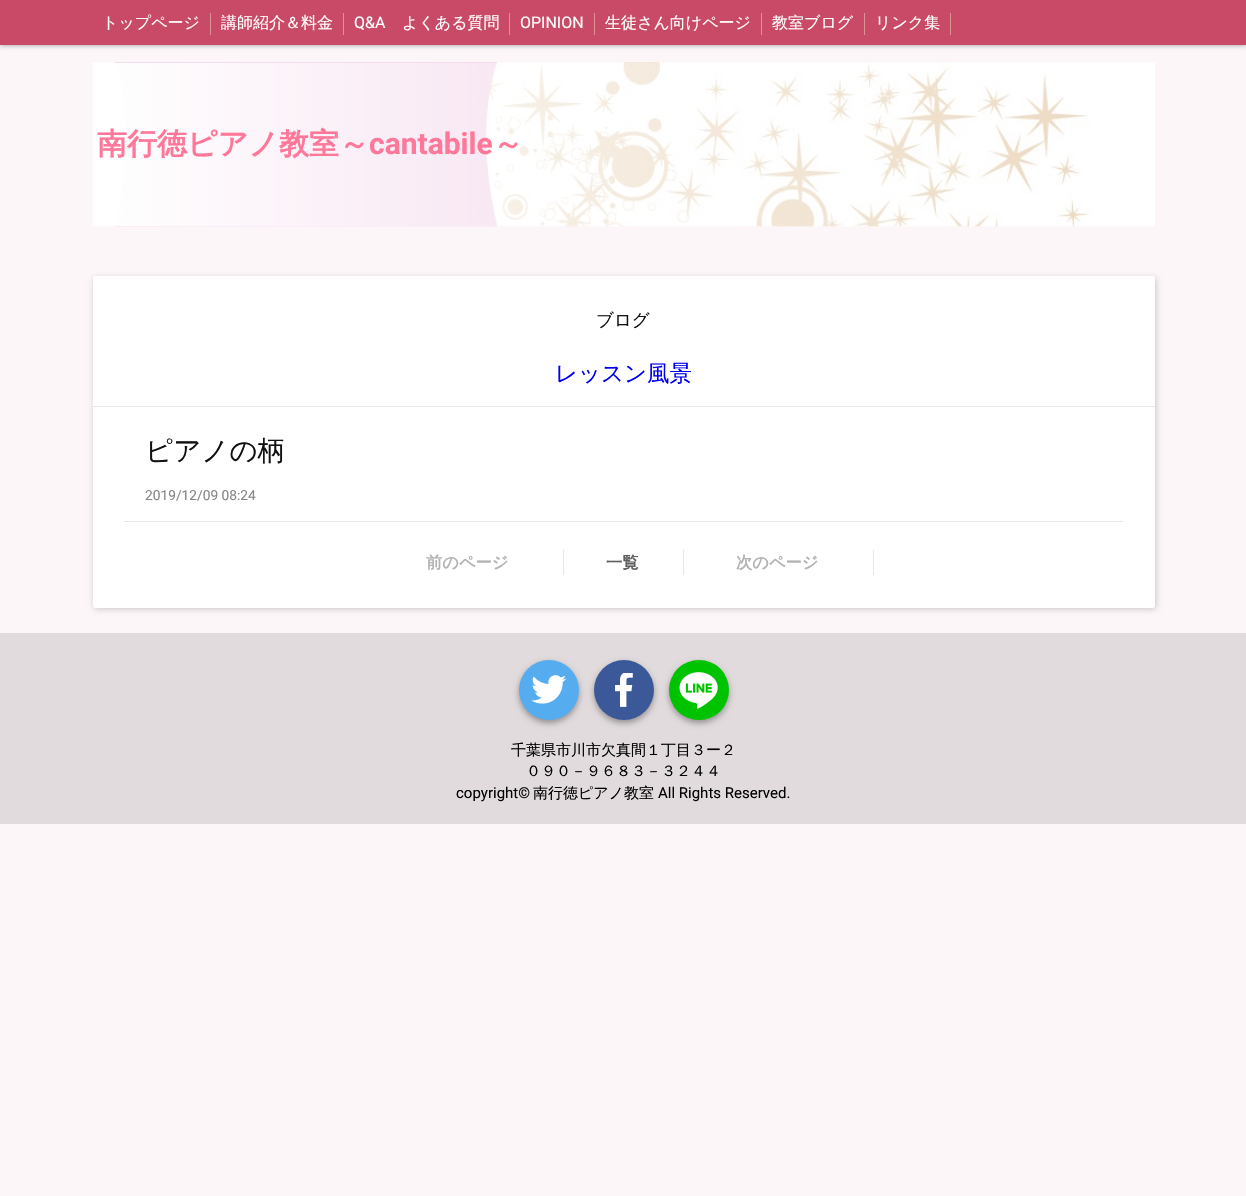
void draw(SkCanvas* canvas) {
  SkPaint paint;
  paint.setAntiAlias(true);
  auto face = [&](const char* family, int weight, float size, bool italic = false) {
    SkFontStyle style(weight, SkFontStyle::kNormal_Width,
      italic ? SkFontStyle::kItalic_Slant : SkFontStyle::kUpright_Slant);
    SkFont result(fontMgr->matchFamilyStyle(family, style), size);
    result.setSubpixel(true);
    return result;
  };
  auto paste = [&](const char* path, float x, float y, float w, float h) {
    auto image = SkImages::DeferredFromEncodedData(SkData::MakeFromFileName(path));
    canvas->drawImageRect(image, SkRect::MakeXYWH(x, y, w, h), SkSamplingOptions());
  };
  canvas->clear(0xfffcf6f8);
  paint.setColor(0x66010101);
  paint.setMaskFilter(SkMaskFilter::MakeBlur(kNormal_SkBlurStyle, 2.5f));
  canvas->drawRect(SkRect::MakeXYWH(0, 0, 1246, 45), paint);
  paint.setMaskFilter(nullptr);
  {
    const struct { float x, y, w, h; SkColor color; } items[] = {
      {0, 0, 1246, 45, 0xffc94a67},
      {210, 13, 1, 22, 0xffdc9391},
      {343, 13, 1, 22, 0xffdc9391},
      {509, 13, 1, 22, 0xffdc9391},
      {594, 13, 1, 22, 0xffdc9391},
      {761, 13, 1, 22, 0xffdc9391},
      {864, 13, 1, 22, 0xffdc9391},
      {950, 13, 1, 22, 0xffdc9391},
    };
    for (auto [x, y, w, h, color] : items) {
      paint.setColor(color);
      canvas->drawRect(SkRect::MakeXYWH(x, y, w, h), paint);
    }
  }
  paste("img/1.png", 92, 62, 1063, 165);
  paint.setColor(0x33000000);
  paint.setMaskFilter(SkMaskFilter::MakeBlur(kNormal_SkBlurStyle, 3));
  canvas->drawRoundRect(SkRect::MakeXYWH(94, 278, 1062, 331), 2.5f, 2.5f, paint);
  paint.setMaskFilter(nullptr);
  paint.setColor(0xffffffff);
  canvas->drawRoundRect(SkRect::MakeXYWH(93, 276, 1062, 332), 2.5f, 2.5f, paint);
  {
    const struct { float x, y, w, h; SkColor color; } items[] = {
      {93, 406, 1062, 1, 0xffe6e6e6},
      {124, 521, 999, 1, 0xffe6e6e6},
      {563, 550, 1, 25, 0xffe6e6e6},
      {683, 550, 1, 25, 0xffe6e6e6},
      {873, 550, 1, 25, 0xffe6e6e6},
      {0, 633, 1246, 191, 0xffe1dbdd},
    };
    for (auto [x, y, w, h, color] : items) {
      paint.setColor(color);
      canvas->drawRect(SkRect::MakeXYWH(x, y, w, h), paint);
    }
  }
  paint.setColor(0x59000000);
  paint.setMaskFilter(SkMaskFilter::MakeBlur(kNormal_SkBlurStyle, 3));
  canvas->drawRoundRect(SkRect::MakeXYWH(519, 663, 60, 60), 30, 30, paint);
  paint.setMaskFilter(nullptr);
  paint.setColor(0xff55acee);
  canvas->drawCircle(549, 690, 30, paint);
  paste("img/2.png", 531, 675, 35, 29);
  paint.setColor(0x59000000);
  paint.setMaskFilter(SkMaskFilter::MakeBlur(kNormal_SkBlurStyle, 3));
  canvas->drawRoundRect(SkRect::MakeXYWH(594, 663, 60, 60), 30, 30, paint);
  paint.setMaskFilter(nullptr);
  paint.setColor(0xff3b5998);
  canvas->drawCircle(624, 690, 30, paint);
  paste("img/3.png", 615, 673, 18, 34);
  paint.setColor(0x59000000);
  paint.setMaskFilter(SkMaskFilter::MakeBlur(kNormal_SkBlurStyle, 3));
  canvas->drawRoundRect(SkRect::MakeXYWH(669, 663, 60, 60), 30, 30, paint);
  paint.setMaskFilter(nullptr);
  paint.setColor(0xff00c300);
  canvas->drawCircle(699, 690, 30, paint);
  paint.setColor(0xffffffff);
  canvas->drawRoundRect(SkRect::MakeXYWH(675, 666, 48, 48), 13, 13, paint);
  paste("img/4.png", 673, 663, 52, 54);
  auto f0 = face("WenQuanYi Zen Hei", 500, 16);
  canvas->drawString("トップページ", 102, 28, f0, paint);
  canvas->drawString("講師紹介＆料金", 221, 28, f0, paint);
  auto f1 = face("Roboto", 400, 16);
  canvas->drawString("Q&A", 354, 28, f1, paint);
  canvas->drawString("よくある質問", 402, 28, f0, paint);
  canvas->drawString("OPINION", 520, 28, f1, paint);
  {
    const struct { const char* s; float x, y; } items[] = {
      {"生徒さん向けページ", 605, 28},
      {"教室ブログ", 772, 28},
      {"リンク集", 875, 28},
    };
    for (auto [s, x, y] : items) {
      canvas->drawString(s, x, y, f0, paint);
    }
  }
  auto f2 = face("WenQuanYi Zen Hei", 700, 30);
  paint.setColor(0xffff7799);
  canvas->drawString("南行徳ピアノ教室～", 97, 154, f2, paint);
  auto f3 = face("Roboto", 700, 30);
  canvas->drawString("cantabile", 369, 154, f3, paint);
  canvas->drawString("～", 493, 154, f2, paint);
  auto f4 = face("WenQuanYi Zen Hei", 500, 17.5f);
  paint.setColor(0xff111111);
  canvas->drawString("ブログ", 596, 326, f4, paint);
  auto f5 = face("WenQuanYi Zen Hei", 500, 22.5f);
  paint.setColor(0xff0000ee);
  canvas->drawString("レッスン風景", 555, 381, f5, paint);
  auto f6 = face("WenQuanYi Zen Hei", 500, 27.5f);
  paint.setColor(0xff111111);
  canvas->drawString("ピアノの柄", 145, 460, f6, paint);
  auto f7 = face("Roboto", 400, 13.75f);
  paint.setColor(0xff868686);
  canvas->drawString("2019/12/09 08:24", 145, 500, f7, paint);
  auto f8 = face("WenQuanYi Zen Hei", 700, 16.25f);
  paint.setColor(0xffb3b3b3);
  canvas->drawString("前のページ", 426, 568, f8, paint);
  paint.setColor(0xff5e5e5e);
  canvas->drawString("一覧", 606, 568, f8, paint);
  paint.setColor(0xffb3b3b3);
  canvas->drawString("次のページ", 736, 568, f8, paint);
  auto f9 = face("WenQuanYi Zen Hei", 500, 15);
  paint.setColor(0xff000000);
  canvas->drawString("千葉県市川市欠真間１丁目３ー２", 511, 755, f9, paint);
  canvas->drawString("０９０－９６８３－３２４４", 526, 776, f9, paint);
  auto f10 = face("Roboto", 400, 15);
  canvas->drawString("copyright©", 456, 798, f10, paint);
  canvas->drawString("南行徳ピアノ教室", 533, 798, f9, paint);
  canvas->drawString("All Rights Reserved.", 658, 798, f10, paint);
}
